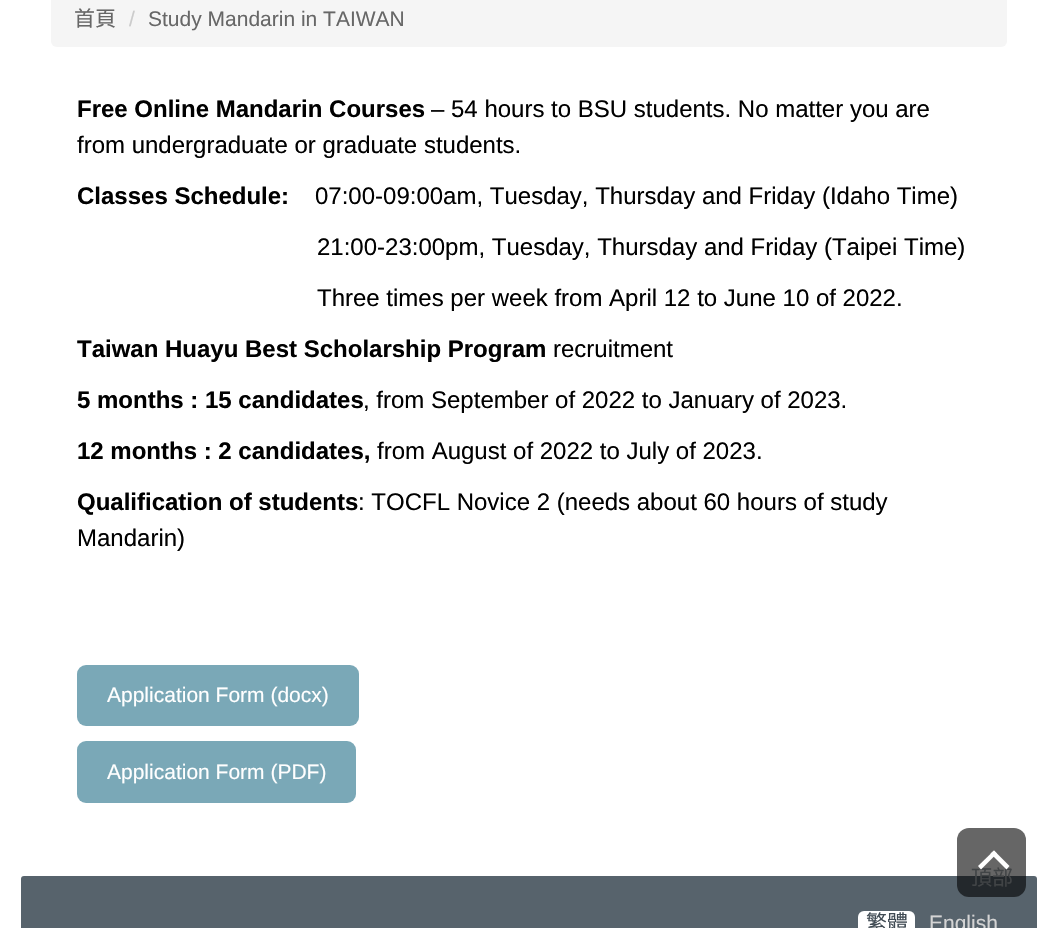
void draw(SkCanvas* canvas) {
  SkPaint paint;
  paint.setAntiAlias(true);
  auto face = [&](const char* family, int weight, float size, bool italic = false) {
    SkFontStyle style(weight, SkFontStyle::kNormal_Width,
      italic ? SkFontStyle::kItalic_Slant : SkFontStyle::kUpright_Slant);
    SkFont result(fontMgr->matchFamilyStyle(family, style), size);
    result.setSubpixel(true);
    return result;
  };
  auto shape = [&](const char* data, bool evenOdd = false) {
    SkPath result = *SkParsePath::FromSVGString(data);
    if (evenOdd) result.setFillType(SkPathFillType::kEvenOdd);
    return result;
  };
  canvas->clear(0xffffffff);
  paint.setColor(0xfff5f5f5);
  canvas->drawRoundRect(SkRect::MakeXYWH(51, -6, 956, 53), 6, 6, paint);
  paint.setColor(0xff7aa8b7);
  canvas->drawRoundRect(SkRect::MakeXYWH(77, 665, 282, 61), 9, 9, paint);
  canvas->drawRoundRect(SkRect::MakeXYWH(77, 741, 279, 62), 9, 9, paint);
  paint.setColor(0xff57636c);
  canvas->drawRoundRect(SkRect::MakeXYWH(21, 876, 1016, 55), 3, 3, paint);
  paint.setColor(0x99000000);
  canvas->drawRoundRect(SkRect::MakeXYWH(957, 828, 69, 69), 12, 12, paint);
  paint.setColor(0xffffffff);
  canvas->drawRoundRect(SkRect::MakeXYWH(858, 911, 57, 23), 6, 6, paint);
  auto f0 = face("Noto Sans CJK TC", 400, 21);
  paint.setColor(0xff676767);
  canvas->drawString("首頁", 74, 26, f0, paint);
  auto f1 = face("Liberation Sans", 400, 21);
  paint.setColor(0xffcccccc);
  canvas->drawString("/", 129, 26, f1, paint);
  paint.setColor(0xff676767);
  canvas->drawString("Study Mandarin in TAIWAN", 148, 26, f1, paint);
  auto f2 = face("Liberation Sans", 700, 24);
  paint.setColor(0xff000000);
  canvas->drawString("Free Online Mandarin Courses", 77, 117, f2, paint);
  auto f3 = face("Liberation Sans", 400, 24);
  canvas->drawString("– 54 hours to BSU students. No matter you are", 431, 117, f3, paint);
  canvas->drawString("from undergraduate or graduate students.", 77, 153, f3, paint);
  canvas->drawString("Classes Schedule:", 77, 204, f2, paint);
  {
    const struct { const char* s; float x, y; } items[] = {
      {"07:00-09:00am, Tuesday, Thursday and Friday (Idaho Time)", 315, 204},
      {"21:00-23:00pm, Tuesday, Thursday and Friday (Taipei Time)", 317, 255},
      {"Three times per week from April 12 to June 10 of 2022.", 317, 306},
    };
    for (auto [s, x, y] : items) {
      canvas->drawString(s, x, y, f3, paint);
    }
  }
  canvas->drawString("Taiwan Huayu Best Scholarship Program", 77, 357, f2, paint);
  canvas->drawString("recruitment", 553, 357, f3, paint);
  canvas->drawString("5 months : 15 candidates", 77, 408, f2, paint);
  canvas->drawString(", from September of 2022 to January of 2023.", 363, 408, f3, paint);
  canvas->drawString("12 months : 2 candidates,", 77, 459, f2, paint);
  canvas->drawString("from August of 2022 to July of 2023.", 377, 459, f3, paint);
  canvas->drawString("Qualification of students", 77, 510, f2, paint);
  canvas->drawString(": TOCFL Novice 2 (needs about 60 hours of study", 358, 510, f3, paint);
  canvas->drawString("Mandarin)", 77, 546, f3, paint);
  paint.setColor(0xffffffff);
  canvas->drawString("Application Form (docx)", 107, 702, f1, paint);
  canvas->drawString("Application Form (PDF)", 107, 779, f1, paint);
  paint.setColor(0xff414446);
  canvas->drawString("頂部", 971, 885, f0, paint);
  paint.setColor(0xffffffff);
  canvas->drawPath(shape("M978 866L994 850.5L997 853.5L981 869.5Z"), paint);
  canvas->drawPath(shape("M990.5 853.5L994 850.5L1009.5 866L1006.5 869.5Z"), paint);
  paint.setColor(0xff3f4a53);
  canvas->drawString("繁體", 866, 930, f0, paint);
  paint.setColor(0xffd4d4d4);
  canvas->drawString("English", 929, 930, f1, paint);
}
